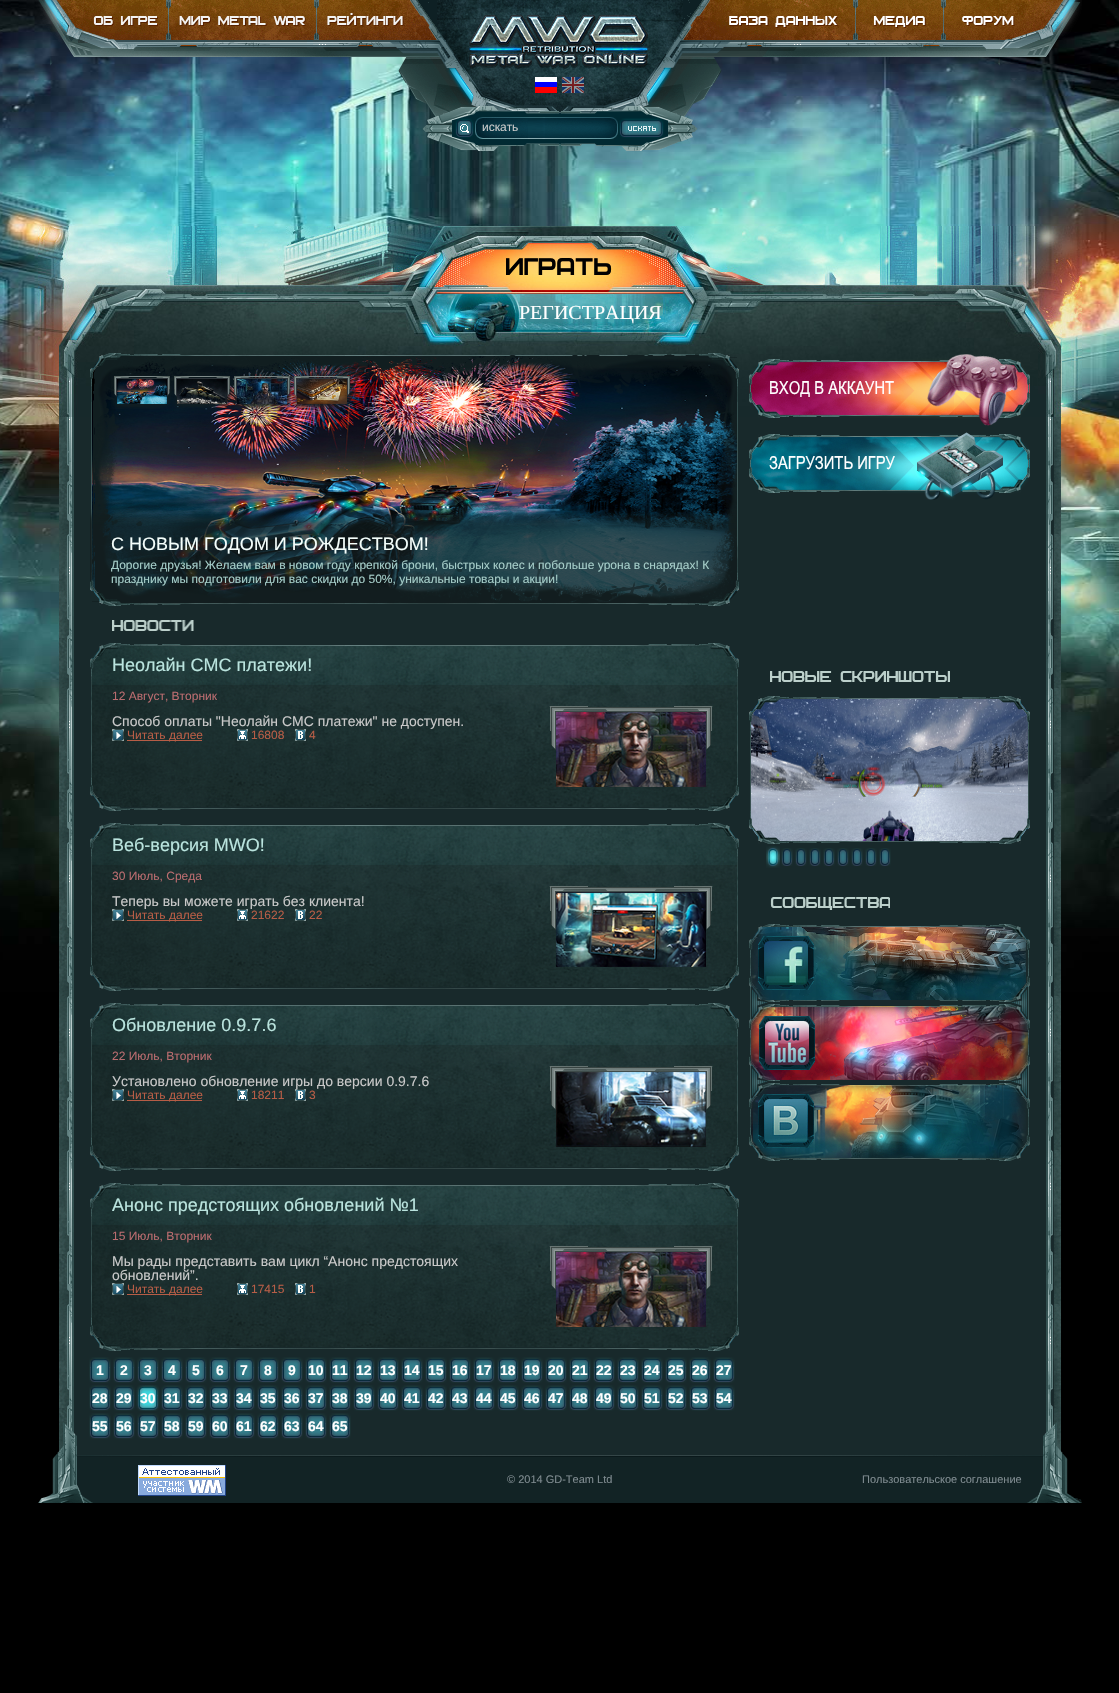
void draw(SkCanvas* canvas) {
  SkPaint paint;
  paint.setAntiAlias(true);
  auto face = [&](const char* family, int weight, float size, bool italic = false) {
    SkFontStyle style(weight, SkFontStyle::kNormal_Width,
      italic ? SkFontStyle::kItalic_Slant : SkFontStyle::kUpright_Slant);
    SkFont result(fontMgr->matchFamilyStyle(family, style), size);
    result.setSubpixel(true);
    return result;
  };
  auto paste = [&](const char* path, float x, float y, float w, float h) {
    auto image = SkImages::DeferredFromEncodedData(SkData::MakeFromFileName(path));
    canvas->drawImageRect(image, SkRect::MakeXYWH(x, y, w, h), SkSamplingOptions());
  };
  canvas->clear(0xff000000);
  paste("img/1.png", 0, 0, 1119, 992);
  paste("img/4.png", 34, 0, 1048, 119);
  paste("img/2.png", 535, 77, 22, 16);
  paste("img/3.png", 562, 77, 22, 16);
  paste("img/5.png", 57, 0, 111, 40);
  paste("img/6.png", 168, 0, 149, 40);
  paste("img/7.png", 317, 0, 120, 40);
  paste("img/8.png", 469, 15, 180, 54);
  paste("img/9.png", 683, 0, 172, 40);
  paste("img/10.png", 855, 0, 88, 40);
  paste("img/11.png", 943, 0, 120, 40);
  paste("img/12.png", 422, 106, 276, 45);
  paste("img/13.png", 59, 417, 1002, 1005);
  paste("img/14.png", 38, 226, 1044, 191);
  paste("img/15.png", 56, 1422, 1008, 33);
  paste("img/16.png", 749, 354, 281, 72);
  paste("img/17.png", 749, 432, 281, 68);
  paste("img/18.png", 770, 671, 180, 11);
  paste("img/19.png", 749, 696, 281, 148);
  paste("img/22.png", 751, 699, 277, 142);
  paste("img/20.png", 749, 696, 31, 25);
  paste("img/21.png", 999, 696, 31, 26);
  paste("img/23.png", 749, 818, 31, 26);
  paste("img/24.png", 999, 818, 31, 26);
  paste("img/25.png", 766, 846, 14, 22);
  paste("img/26.png", 781, 848, 12, 18);
  paste("img/26.png", 795, 848, 12, 18);
  paste("img/26.png", 809, 848, 12, 18);
  paste("img/26.png", 823, 848, 12, 18);
  paste("img/26.png", 837, 848, 12, 18);
  paste("img/26.png", 851, 848, 12, 18);
  paste("img/26.png", 865, 848, 12, 18);
  paste("img/26.png", 879, 848, 12, 18);
  paste("img/27.png", 770, 897, 120, 13);
  paste("img/28.png", 749, 1003, 281, 79);
  paste("img/29.png", 749, 924, 281, 79);
  paste("img/30.png", 749, 1082, 281, 79);
  paste("img/31.png", 751, 927, 275, 73);
  paste("img/32.png", 751, 1006, 278, 74);
  paste("img/33.png", 751, 1085, 275, 73);
  paste("img/34.png", 90, 353, 649, 253);
  paste("img/46.png", 92, 356, 645, 247);
  paste("img/45.png", 92, 355, 645, 249);
  paste("img/35.png", 90, 353, 31, 26);
  paste("img/36.png", 111, 371, 62, 38);
  paste("img/37.png", 117, 379, 50, 25);
  paste("img/38.png", 164, 372, 76, 43);
  paste("img/39.png", 177, 379, 50, 25);
  paste("img/40.png", 225, 368, 75, 48);
  paste("img/41.png", 237, 379, 50, 25);
  paste("img/42.png", 285, 367, 75, 49);
  paste("img/43.png", 297, 379, 50, 25);
  paste("img/44.png", 708, 353, 31, 26);
  paste("img/47.png", 90, 509, 647, 94);
  paste("img/49.png", 708, 580, 31, 26);
  paste("img/50.png", 112, 620, 82, 11);
  paste("img/51.png", 90, 643, 649, 168);
  paste("img/52.png", 112, 729, 12, 12);
  paint.setColor(0xffb75d46);
  canvas->drawRect(SkRect::MakeXYWH(127, 740, 75, 1), paint);
  paste("img/53.png", 237, 729, 11, 12);
  paste("img/54.png", 295, 729, 11, 12);
  paste("img/55.png", 549, 706, 164, 44);
  paste("img/56.png", 556, 712, 150, 75);
  paste("img/51.png", 90, 823, 649, 168);
  paste("img/52.png", 112, 909, 12, 12);
  canvas->drawRect(SkRect::MakeXYWH(127, 920, 75, 1), paint);
  paste("img/53.png", 237, 909, 11, 12);
  paste("img/54.png", 295, 909, 11, 12);
  paste("img/55.png", 549, 886, 164, 44);
  paste("img/57.png", 556, 892, 150, 75);
  paste("img/51.png", 90, 1003, 649, 168);
  paste("img/52.png", 112, 1089, 12, 12);
  canvas->drawRect(SkRect::MakeXYWH(127, 1100, 75, 1), paint);
  paste("img/53.png", 237, 1089, 11, 12);
  paste("img/54.png", 295, 1089, 11, 12);
  paste("img/55.png", 549, 1066, 164, 44);
  paste("img/58.png", 556, 1072, 150, 75);
  paste("img/51.png", 90, 1183, 649, 168);
  paste("img/52.png", 112, 1283, 12, 12);
  canvas->drawRect(SkRect::MakeXYWH(127, 1294, 75, 1), paint);
  paste("img/53.png", 237, 1283, 11, 12);
  paste("img/54.png", 295, 1283, 11, 12);
  paste("img/55.png", 549, 1246, 164, 44);
  paste("img/56.png", 556, 1252, 150, 75);
  paste("img/59.png", 89, 1357, 22, 26);
  paste("img/59.png", 113, 1357, 22, 26);
  paste("img/59.png", 137, 1357, 22, 26);
  paste("img/59.png", 161, 1357, 22, 26);
  paste("img/59.png", 185, 1357, 22, 26);
  paste("img/59.png", 209, 1357, 22, 26);
  paste("img/59.png", 233, 1357, 22, 26);
  paste("img/59.png", 257, 1357, 22, 26);
  paste("img/59.png", 281, 1357, 22, 26);
  paste("img/59.png", 305, 1357, 22, 26);
  paste("img/59.png", 329, 1357, 22, 26);
  paste("img/59.png", 353, 1357, 22, 26);
  paste("img/59.png", 377, 1357, 22, 26);
  paste("img/59.png", 401, 1357, 22, 26);
  paste("img/59.png", 425, 1357, 22, 26);
  paste("img/59.png", 449, 1357, 22, 26);
  paste("img/59.png", 473, 1357, 22, 26);
  paste("img/59.png", 497, 1357, 22, 26);
  paste("img/59.png", 521, 1357, 22, 26);
  paste("img/59.png", 545, 1357, 22, 26);
  paste("img/59.png", 569, 1357, 22, 26);
  paste("img/59.png", 593, 1357, 22, 26);
  paste("img/59.png", 617, 1357, 22, 26);
  paste("img/59.png", 641, 1357, 22, 26);
  paste("img/59.png", 665, 1357, 22, 26);
  paste("img/59.png", 689, 1357, 22, 26);
  paste("img/59.png", 713, 1357, 22, 26);
  paste("img/59.png", 89, 1385, 22, 26);
  paste("img/59.png", 113, 1385, 22, 26);
  paste("img/60.png", 136, 1385, 24, 26);
  paste("img/59.png", 161, 1385, 22, 26);
  paste("img/59.png", 185, 1385, 22, 26);
  paste("img/59.png", 209, 1385, 22, 26);
  paste("img/59.png", 233, 1385, 22, 26);
  paste("img/59.png", 257, 1385, 22, 26);
  paste("img/59.png", 281, 1385, 22, 26);
  paste("img/59.png", 305, 1385, 22, 26);
  paste("img/59.png", 329, 1385, 22, 26);
  paste("img/59.png", 353, 1385, 22, 26);
  paste("img/59.png", 377, 1385, 22, 26);
  paste("img/59.png", 401, 1385, 22, 26);
  paste("img/59.png", 425, 1385, 22, 26);
  paste("img/59.png", 449, 1385, 22, 26);
  paste("img/59.png", 473, 1385, 22, 26);
  paste("img/59.png", 497, 1385, 22, 26);
  paste("img/59.png", 521, 1385, 22, 26);
  paste("img/59.png", 545, 1385, 22, 26);
  paste("img/59.png", 569, 1385, 22, 26);
  paste("img/59.png", 593, 1385, 22, 26);
  paste("img/59.png", 617, 1385, 22, 26);
  paste("img/59.png", 641, 1385, 22, 26);
  paste("img/59.png", 665, 1385, 22, 26);
  paste("img/59.png", 689, 1385, 22, 26);
  paste("img/59.png", 713, 1385, 22, 26);
  paste("img/59.png", 89, 1413, 22, 26);
  paste("img/59.png", 113, 1413, 22, 26);
  paste("img/59.png", 137, 1413, 22, 26);
  paste("img/59.png", 161, 1413, 22, 26);
  paste("img/59.png", 185, 1413, 22, 26);
  paste("img/59.png", 209, 1413, 22, 26);
  paste("img/59.png", 233, 1413, 22, 26);
  paste("img/59.png", 257, 1413, 22, 26);
  paste("img/59.png", 281, 1413, 22, 26);
  paste("img/59.png", 305, 1413, 22, 26);
  paste("img/59.png", 329, 1413, 22, 26);
  paste("img/61.png", 38, 1455, 1044, 48);
  paste("img/62.png", 138, 1465, 88, 31);
  auto f0 = face("Liberation Sans", 400, 12);
  paint.setColor(0xffc9c9c9);
  canvas->drawString("искать", 482, 131, f0, paint);
  auto f1 = face("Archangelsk", 400, 28);
  paint.setColor(0xff000000);
  canvas->drawString("ИГРАТЬ", 506, 275, f1, paint);
  auto f2 = face("Liberation Serif", 400, 20);
  paint.setColor(0xffffffff);
  canvas->drawString("РЕГИСТРАЦИЯ", 519, 319, f2, paint);
  auto f3 = face("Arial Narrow", 400, 18);
  canvas->drawString("ВХОД В АККАУНТ", 769, 394, f3, paint);
  canvas->drawString("ЗАГРУЗИТЬ ИГРУ", 769, 469, f3, paint);
  auto f4 = face("Liberation Sans", 400, 18);
  paint.setColor(0xfff5fffc);
  canvas->drawString("С НОВЫМ ГОДОМ И РОЖДЕСТВОМ!", 111, 550, f4, paint);
  paint.setColor(0xffa5cdc8);
  canvas->drawString("Дорогие друзья! Желаем вам в новом году крепкой брони, быстрых колес и побольше урона в снарядах! К", 111, 569, f0, paint);
  canvas->drawString("празднику мы подготовили для вас скидки до 50%, уникальные товары и акции!", 111, 583, f0, paint);
  paste("img/48.png", 90, 580, 31, 26);
  paint.setColor(0xffbae4de);
  canvas->drawString("Неолайн СМС платежи!", 112, 671, f4, paint);
  paint.setColor(0xffba6c6f);
  canvas->drawString("12 Август, Вторник", 112, 700, f0, paint);
  auto f5 = face("Liberation Sans", 400, 14);
  paint.setColor(0xffc9c9c9);
  canvas->drawString("Способ оплаты \"Неолайн СМС платежи\" не доступен.", 112, 726, f5, paint);
  paint.setColor(0xffb75d46);
  {
    const struct { const char* s; float x, y; } items[] = {
      {"Читать далее", 127, 739},
      {"16808", 251, 739},
      {"4", 309, 739},
    };
    for (auto [s, x, y] : items) {
      canvas->drawString(s, x, y, f0, paint);
    }
  }
  paint.setColor(0xffbae4de);
  canvas->drawString("Веб-версия MWO!", 112, 851, f4, paint);
  paint.setColor(0xffba6c6f);
  canvas->drawString("30 Июль, Среда", 112, 880, f0, paint);
  paint.setColor(0xffc9c9c9);
  canvas->drawString("Теперь вы можете играть без клиента!", 112, 906, f5, paint);
  paint.setColor(0xffb75d46);
  {
    const struct { const char* s; float x, y; } items[] = {
      {"Читать далее", 127, 919},
      {"21622", 251, 919},
      {"22", 309, 919},
    };
    for (auto [s, x, y] : items) {
      canvas->drawString(s, x, y, f0, paint);
    }
  }
  paint.setColor(0xffbae4de);
  canvas->drawString("Обновление 0.9.7.6", 112, 1031, f4, paint);
  paint.setColor(0xffba6c6f);
  canvas->drawString("22 Июль, Вторник", 112, 1060, f0, paint);
  paint.setColor(0xffc9c9c9);
  canvas->drawString("Установлено обновление игры до версии 0.9.7.6", 112, 1086, f5, paint);
  paint.setColor(0xffb75d46);
  {
    const struct { const char* s; float x, y; } items[] = {
      {"Читать далее", 127, 1099},
      {"18211", 251, 1099},
      {"3", 309, 1099},
    };
    for (auto [s, x, y] : items) {
      canvas->drawString(s, x, y, f0, paint);
    }
  }
  paint.setColor(0xffbae4de);
  canvas->drawString("Анонс предстоящих обновлений №1", 112, 1211, f4, paint);
  paint.setColor(0xffba6c6f);
  canvas->drawString("15 Июль, Вторник", 112, 1240, f0, paint);
  paint.setColor(0xffc9c9c9);
  canvas->drawString("Мы рады представить вам цикл “Анонс предстоящих", 112, 1266, f5, paint);
  canvas->drawString("обновлений”.", 112, 1280, f5, paint);
  paint.setColor(0xffb75d46);
  {
    const struct { const char* s; float x, y; } items[] = {
      {"Читать далее", 127, 1293},
      {"17415", 251, 1293},
      {"1", 309, 1293},
    };
    for (auto [s, x, y] : items) {
      canvas->drawString(s, x, y, f0, paint);
    }
  }
  auto f6 = face("Liberation Sans", 700, 14);
  paint.setColor(0xffffffff);
  {
    const struct { const char* s; float x, y; } items[] = {
      {"1", 96, 1375},
      {"2", 120, 1375},
      {"3", 144, 1375},
      {"4", 168, 1375},
      {"5", 192, 1375},
      {"6", 216, 1375},
      {"7", 240, 1375},
      {"8", 264, 1375},
      {"9", 288, 1375},
      {"10", 308, 1375},
      {"11", 332, 1375},
      {"12", 356, 1375},
      {"13", 380, 1375},
      {"14", 404, 1375},
      {"15", 428, 1375},
      {"16", 452, 1375},
      {"17", 476, 1375},
      {"18", 500, 1375},
      {"19", 524, 1375},
      {"20", 548, 1375},
      {"21", 572, 1375},
      {"22", 596, 1375},
      {"23", 620, 1375},
      {"24", 644, 1375},
      {"25", 668, 1375},
      {"26", 692, 1375},
      {"27", 716, 1375},
      {"28", 92, 1403},
      {"29", 116, 1403},
      {"30", 140, 1403},
      {"31", 164, 1403},
      {"32", 188, 1403},
      {"33", 212, 1403},
      {"34", 236, 1403},
      {"35", 260, 1403},
      {"36", 284, 1403},
      {"37", 308, 1403},
      {"38", 332, 1403},
      {"39", 356, 1403},
      {"40", 380, 1403},
      {"41", 404, 1403},
      {"42", 428, 1403},
      {"43", 452, 1403},
      {"44", 476, 1403},
      {"45", 500, 1403},
      {"46", 524, 1403},
      {"47", 548, 1403},
      {"48", 572, 1403},
      {"49", 596, 1403},
      {"50", 620, 1403},
      {"51", 644, 1403},
      {"52", 668, 1403},
      {"53", 692, 1403},
      {"54", 716, 1403},
      {"55", 92, 1431},
      {"56", 116, 1431},
      {"57", 140, 1431},
      {"58", 164, 1431},
      {"59", 188, 1431},
      {"60", 212, 1431},
      {"61", 236, 1431},
      {"62", 260, 1431},
      {"63", 284, 1431},
      {"64", 308, 1431},
      {"65", 332, 1431},
    };
    for (auto [s, x, y] : items) {
      canvas->drawString(s, x, y, f6, paint);
    }
  }
  auto f7 = face("Liberation Sans", 400, 11);
  paint.setColor(0xff7f8b90);
  canvas->drawString("© 2014 GD-Team Ltd", 507, 1483, f7, paint);
  canvas->drawString("Пользовательское соглашение", 862, 1483, f7, paint);
}
